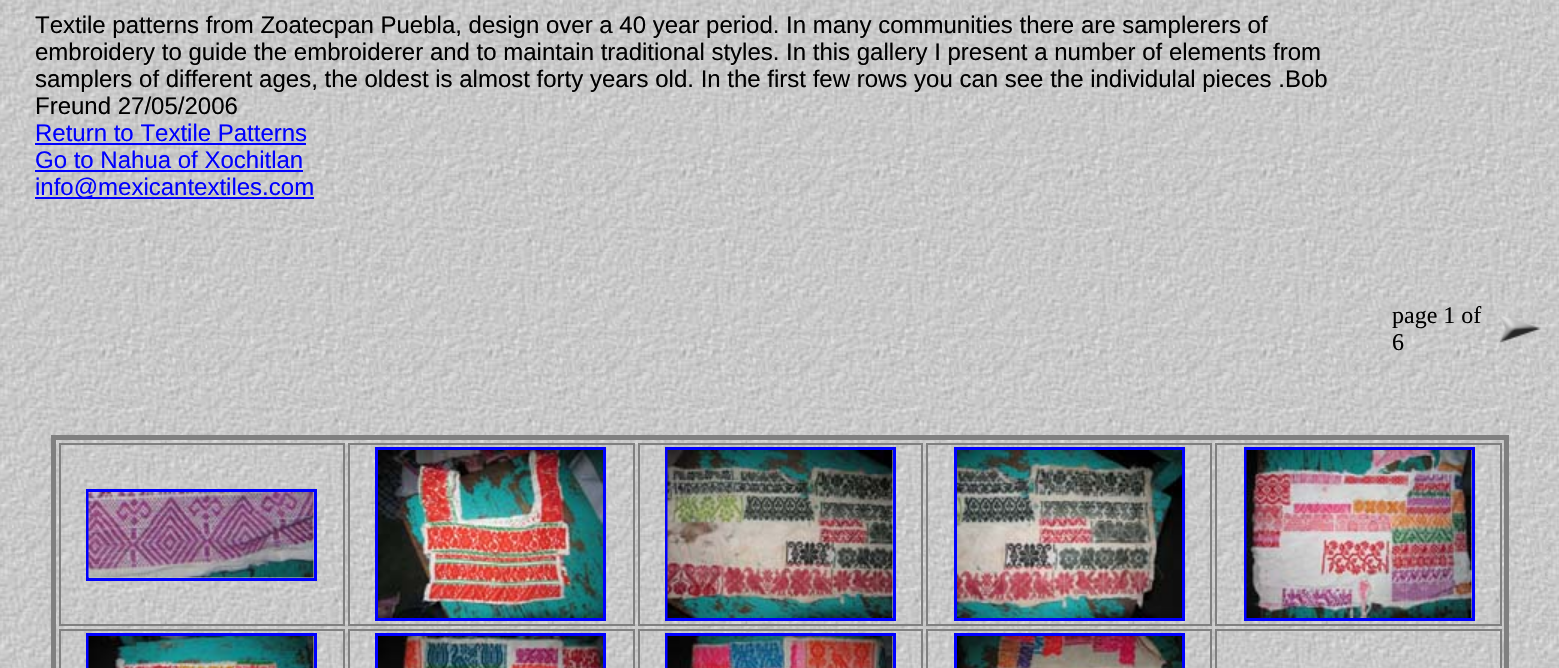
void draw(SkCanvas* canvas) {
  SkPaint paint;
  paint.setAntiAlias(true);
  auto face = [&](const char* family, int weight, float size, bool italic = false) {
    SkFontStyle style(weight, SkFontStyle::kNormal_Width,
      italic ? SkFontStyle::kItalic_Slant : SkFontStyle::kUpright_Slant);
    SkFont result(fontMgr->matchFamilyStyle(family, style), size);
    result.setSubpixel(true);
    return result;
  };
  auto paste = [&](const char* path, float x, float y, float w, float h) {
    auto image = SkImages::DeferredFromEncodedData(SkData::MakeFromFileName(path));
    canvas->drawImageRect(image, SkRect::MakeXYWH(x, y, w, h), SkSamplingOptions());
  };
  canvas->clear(0xffffffff);
  paste("img/1.png", 0, 0, 1559, 668);
  {
    const struct { float x, y, w, h; SkColor color; } items[] = {
      {35, 143, 271, 2, 0xff0000ff},
      {35, 170, 268, 2, 0xff0000ff},
      {35, 197, 279, 2, 0xff0000ff},
    };
    for (auto [x, y, w, h, color] : items) {
      paint.setColor(color);
      canvas->drawRect(SkRect::MakeXYWH(x, y, w, h), paint);
    }
  }
  paste("img/2.png", 1499, 315, 42, 28);
  paint.setStroke(true);
  paint.setStrokeWidth(5);
  paint.setColor(0xff808080);
  canvas->drawRect(SkRect::MakeXYWH(53.5f, 437.5f, 1453, 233), paint);
  paint.setStrokeWidth(2);
  canvas->drawRect(SkRect::MakeXYWH(60, 444, 284, 181), paint);
  paint.setStrokeWidth(3);
  paint.setColor(0xff0000ff);
  canvas->drawRect(SkRect::MakeXYWH(87.5f, 490.5f, 228, 89), paint);
  paste("img/3.png", 88, 492, 226, 86);
  paint.setStrokeWidth(2);
  paint.setColor(0xff808080);
  canvas->drawRect(SkRect::MakeXYWH(349, 444, 285, 181), paint);
  paint.setStrokeWidth(3);
  paint.setColor(0xff0000ff);
  canvas->drawRect(SkRect::MakeXYWH(376.5f, 448.5f, 228, 171), paint);
  paste("img/4.png", 378, 450, 225, 168);
  paint.setStrokeWidth(2);
  paint.setColor(0xff808080);
  canvas->drawRect(SkRect::MakeXYWH(639, 444, 283, 181), paint);
  paint.setStrokeWidth(3);
  paint.setColor(0xff0000ff);
  canvas->drawRect(SkRect::MakeXYWH(666.5f, 448.5f, 228, 171), paint);
  paste("img/5.png", 667, 450, 226, 168);
  paint.setStrokeWidth(2);
  paint.setColor(0xff808080);
  canvas->drawRect(SkRect::MakeXYWH(927, 444, 284, 181), paint);
  paint.setStrokeWidth(3);
  paint.setColor(0xff0000ff);
  canvas->drawRect(SkRect::MakeXYWH(955.5f, 448.5f, 228, 171), paint);
  paste("img/6.png", 957, 450, 225, 168);
  paint.setStrokeWidth(2);
  paint.setColor(0xff808080);
  canvas->drawRect(SkRect::MakeXYWH(1216, 444, 285, 181), paint);
  paint.setStrokeWidth(3);
  paint.setColor(0xff0000ff);
  canvas->drawRect(SkRect::MakeXYWH(1245.5f, 448.5f, 228, 171), paint);
  paste("img/7.png", 1246, 450, 226, 168);
  paint.setStrokeWidth(2);
  paint.setColor(0xff808080);
  canvas->drawRect(SkRect::MakeXYWH(60, 630, 284, 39), paint);
  paint.setStrokeWidth(3);
  paint.setColor(0xff0000ff);
  canvas->drawRect(SkRect::MakeXYWH(87.5f, 634.5f, 228, 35), paint);
  paste("img/8.png", 88, 636, 226, 32);
  paint.setStrokeWidth(2);
  paint.setColor(0xff808080);
  canvas->drawRect(SkRect::MakeXYWH(349, 630, 285, 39), paint);
  paint.setStrokeWidth(3);
  paint.setColor(0xff0000ff);
  canvas->drawRect(SkRect::MakeXYWH(376.5f, 634.5f, 228, 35), paint);
  paste("img/9.png", 378, 636, 225, 32);
  paint.setStrokeWidth(2);
  paint.setColor(0xff808080);
  canvas->drawRect(SkRect::MakeXYWH(639, 630, 283, 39), paint);
  paint.setStrokeWidth(3);
  paint.setColor(0xff0000ff);
  canvas->drawRect(SkRect::MakeXYWH(666.5f, 634.5f, 228, 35), paint);
  paste("img/10.png", 667, 636, 226, 32);
  paint.setStrokeWidth(2);
  paint.setColor(0xff808080);
  canvas->drawRect(SkRect::MakeXYWH(927, 630, 284, 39), paint);
  paint.setStrokeWidth(3);
  paint.setColor(0xff0000ff);
  canvas->drawRect(SkRect::MakeXYWH(955.5f, 634.5f, 228, 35), paint);
  paste("img/11.png", 957, 636, 225, 32);
  paint.setStrokeWidth(2);
  paint.setColor(0xff808080);
  canvas->drawRect(SkRect::MakeXYWH(1216, 630, 285, 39), paint);
  auto f0 = face("Liberation Sans", 400, 24);
  paint.setStroke(false);
  paint.setColor(0xff000000);
  {
    const struct { const char* s; float x, y; } items[] = {
      {"Textile patterns from Zoatecpan Puebla, design over a 40 year period. In many communities there are samplerers of", 35, 33},
      {"embroidery to guide the embroiderer and to maintain traditional styles. In this gallery I present a number of elements from", 35, 60},
      {"samplers of different ages, the oldest is almost forty years old. In the first few rows you can see the individulal pieces .Bob", 35, 87},
      {"Freund 27/05/2006", 35, 114},
    };
    for (auto [s, x, y] : items) {
      canvas->drawString(s, x, y, f0, paint);
    }
  }
  paint.setColor(0xff0000ff);
  {
    const struct { const char* s; float x, y; } items[] = {
      {"Return to Textile Patterns", 35, 141},
      {"Go to Nahua of Xochitlan", 35, 168},
      {"info@mexicantextiles.com", 35, 195},
    };
    for (auto [s, x, y] : items) {
      canvas->drawString(s, x, y, f0, paint);
    }
  }
  auto f1 = face("Liberation Serif", 400, 24);
  paint.setColor(0xff000000);
  canvas->drawString("page 1 of", 1392, 323, f1, paint);
  canvas->drawString("6", 1392, 350, f1, paint);
}
